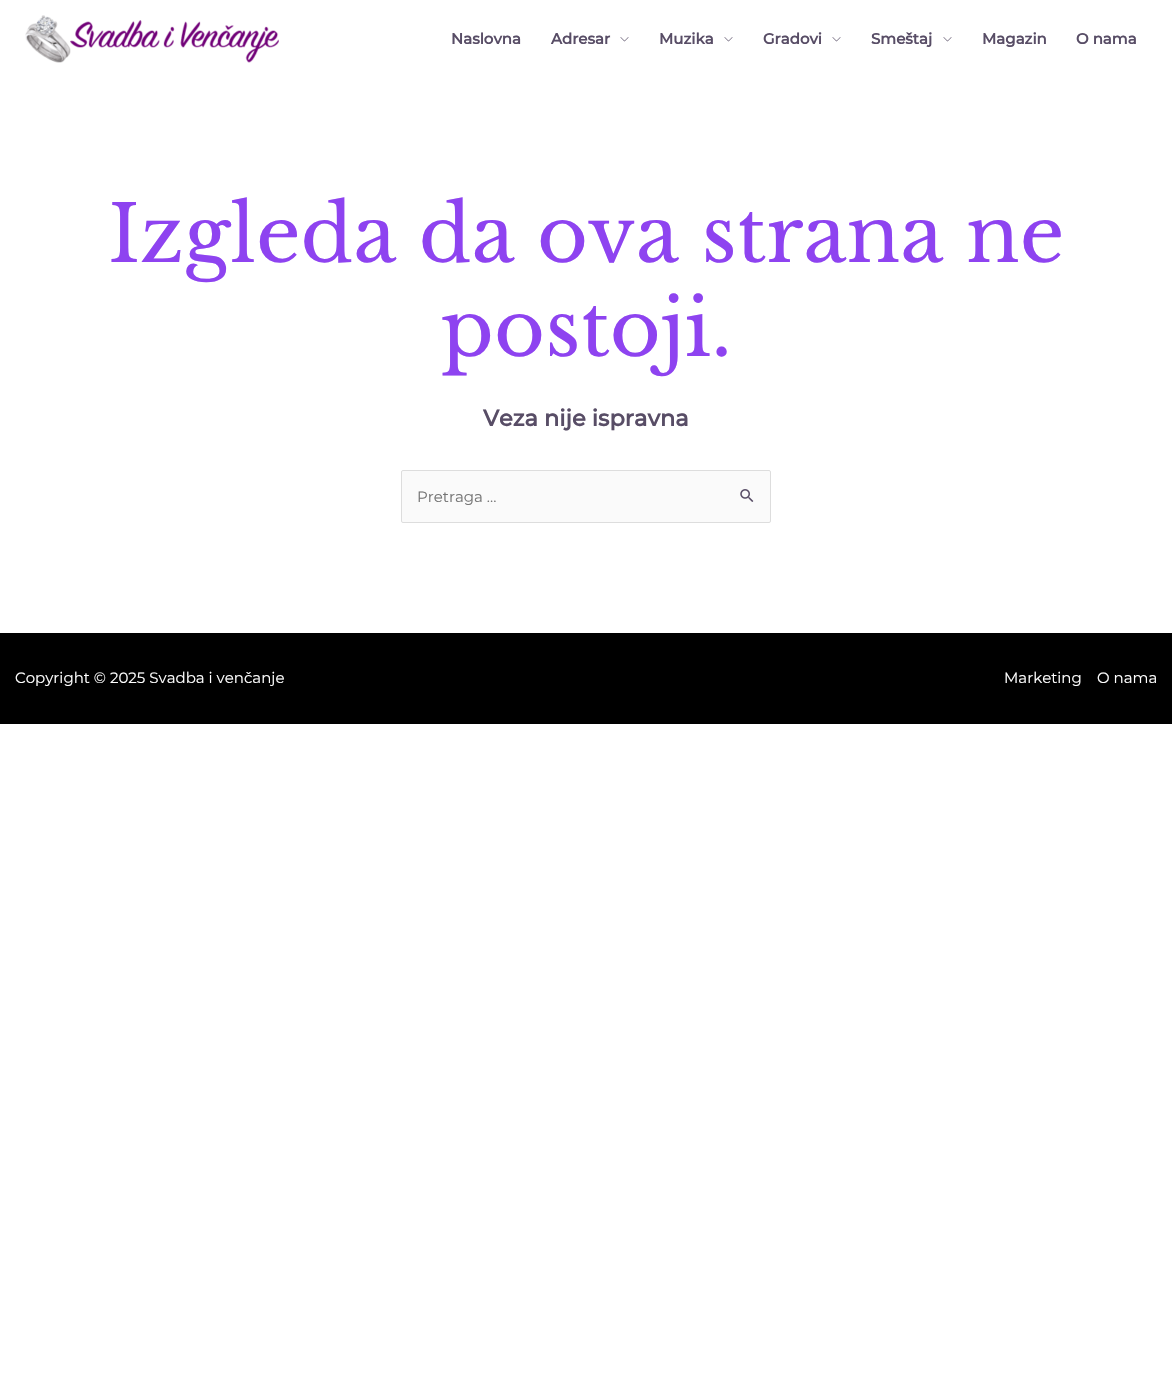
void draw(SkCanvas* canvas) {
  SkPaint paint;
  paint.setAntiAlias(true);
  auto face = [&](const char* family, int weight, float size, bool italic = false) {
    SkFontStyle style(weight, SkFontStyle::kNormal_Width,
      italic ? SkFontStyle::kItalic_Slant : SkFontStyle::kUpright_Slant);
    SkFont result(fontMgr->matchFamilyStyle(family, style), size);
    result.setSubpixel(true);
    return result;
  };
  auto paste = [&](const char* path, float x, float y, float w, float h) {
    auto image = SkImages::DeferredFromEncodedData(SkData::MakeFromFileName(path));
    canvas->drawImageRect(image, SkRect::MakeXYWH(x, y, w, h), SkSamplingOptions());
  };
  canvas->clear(0xffffffff);
  paste("img/1.png", 25, 15, 254, 48);
  paste("img/2.png", 620, 37, 9, 5);
  paste("img/2.png", 724, 37, 9, 5);
  paste("img/2.png", 832, 37, 9, 5);
  paste("img/2.png", 943, 37, 9, 5);
  paint.setColor(0xfffafafa);
  canvas->drawRoundRect(SkRect::MakeXYWH(401.5f, 470.5f, 369, 52), 1.5f, 1.5f, paint);
  paint.setStroke(true);
  paint.setStrokeWidth(1);
  paint.setColor(0xffdddddd);
  canvas->drawRoundRect(SkRect::MakeXYWH(401.5f, 470.5f, 369, 52), 1.5f, 1.5f, paint);
  paste("img/3.png", 740, 489, 14, 13);
  paint.setStroke(false);
  paint.setColor(0xff000000);
  canvas->drawRect(SkRect::MakeXYWH(0, 633, 1172, 91), paint);
  auto f0 = face("Montserrat", 700, 15);
  paint.setColor(0xff584d66);
  {
    const struct { const char* s; float x, y; } items[] = {
      {"Naslovna", 451, 44},
      {"Adresar", 551, 44},
      {"Muzika", 659, 44},
      {"Gradovi", 763, 44},
      {"Smeštaj", 871, 44},
      {"Magazin", 982, 44},
      {"O nama", 1076, 44},
    };
    for (auto [s, x, y] : items) {
      canvas->drawString(s, x, y, f0, paint);
    }
  }
  auto f1 = face("Libre Baskerville", 400, 78);
  paint.setColor(0xff8e43f0);
  canvas->drawString("Izgleda da ova strana ne", 108, 262, f1, paint);
  canvas->drawString("postoji.", 441, 356, f1, paint);
  auto f2 = face("Montserrat", 700, 22.5f);
  paint.setColor(0xff584d66);
  canvas->drawString("Veza nije ispravna", 483, 426, f2, paint);
  auto f3 = face("Montserrat", 400, 15);
  paint.setColor(0xff757575);
  canvas->drawString("Pretraga …", 417, 502, f3, paint);
  paint.setColor(0xffffffff);
  {
    const struct { const char* s; float x, y; } items[] = {
      {"Copyright © 2025 Svadba i venčanje", 15, 683},
      {"Marketing", 1004, 683},
      {"O nama", 1097, 683},
    };
    for (auto [s, x, y] : items) {
      canvas->drawString(s, x, y, f3, paint);
    }
  }
}
